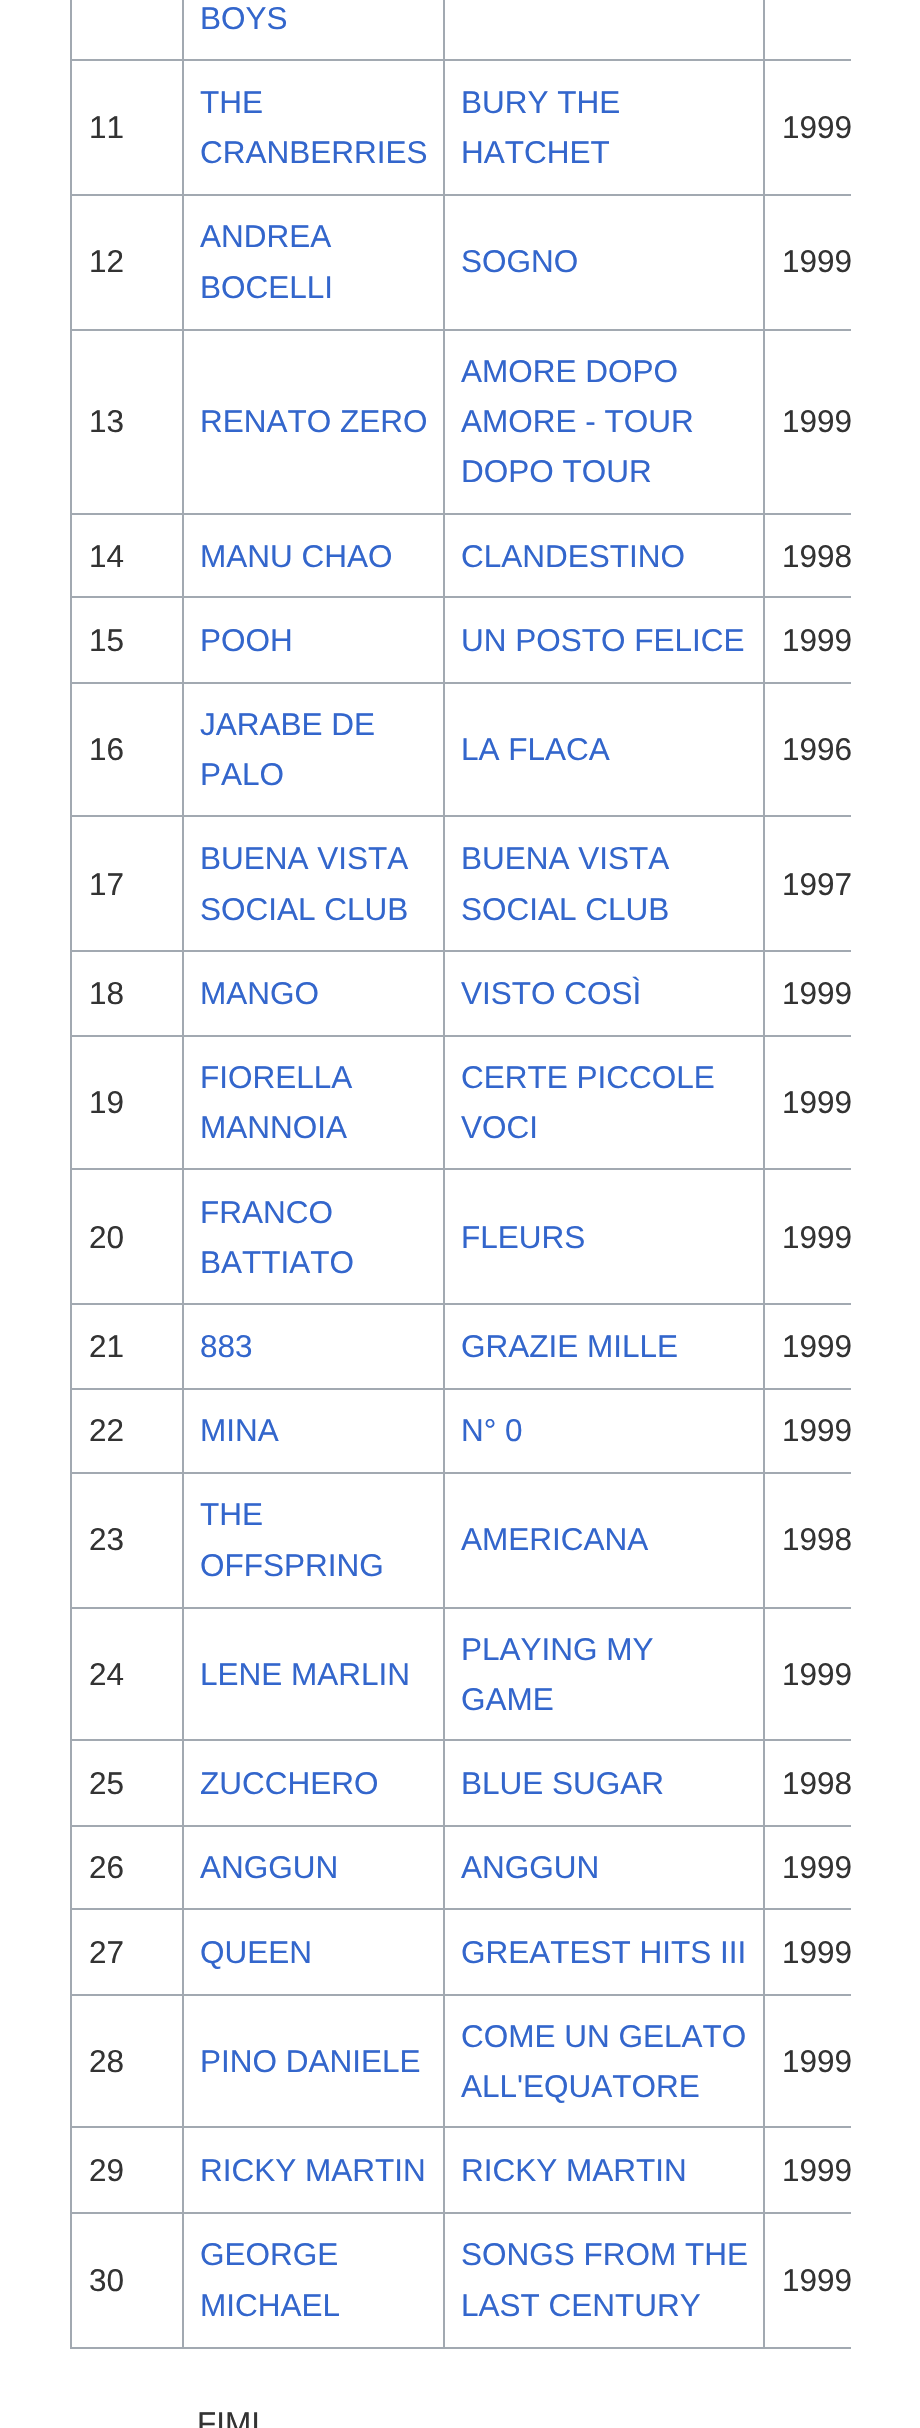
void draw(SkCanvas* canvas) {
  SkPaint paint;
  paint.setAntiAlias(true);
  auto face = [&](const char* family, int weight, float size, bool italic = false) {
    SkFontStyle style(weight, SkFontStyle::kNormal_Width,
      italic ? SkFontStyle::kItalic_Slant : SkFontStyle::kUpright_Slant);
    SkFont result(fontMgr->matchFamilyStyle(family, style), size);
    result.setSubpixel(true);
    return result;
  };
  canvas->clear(0xffffffff);
  {
    const struct { float x, y, w, h; SkColor color; } items[] = {
      {70, 2347, 781, 2, 0xffa2a9b1},
      {70, 0, 2, 2349, 0xffa2a9b1},
      {763, 59, 88, 2, 0xffa2a9b1},
      {763, 194, 88, 2, 0xffa2a9b1},
      {763, 329, 88, 2, 0xffa2a9b1},
      {763, 513, 88, 2, 0xffa2a9b1},
      {763, 596, 88, 2, 0xffa2a9b1},
      {763, 682, 88, 2, 0xffa2a9b1},
      {763, 815, 88, 2, 0xffa2a9b1},
      {763, 950, 88, 2, 0xffa2a9b1},
      {763, 1035, 88, 2, 0xffa2a9b1},
      {763, 1168, 88, 2, 0xffa2a9b1},
      {763, 1303, 88, 2, 0xffa2a9b1},
      {763, 1388, 88, 2, 0xffa2a9b1},
      {763, 1472, 88, 2, 0xffa2a9b1},
      {763, 1607, 88, 2, 0xffa2a9b1},
      {763, 1739, 88, 2, 0xffa2a9b1},
      {763, 1825, 88, 2, 0xffa2a9b1},
      {763, 1908, 88, 2, 0xffa2a9b1},
      {763, 1994, 88, 2, 0xffa2a9b1},
      {763, 2126, 88, 2, 0xffa2a9b1},
      {763, 2212, 88, 2, 0xffa2a9b1},
      {763, 2212, 2, 137, 0xffa2a9b1},
      {443, 2212, 322, 2, 0xffa2a9b1},
      {763, 2126, 2, 88, 0xffa2a9b1},
      {443, 2126, 322, 2, 0xffa2a9b1},
      {763, 1994, 2, 135, 0xffa2a9b1},
      {443, 1994, 322, 2, 0xffa2a9b1},
      {763, 1908, 2, 88, 0xffa2a9b1},
      {443, 1908, 322, 2, 0xffa2a9b1},
      {763, 1825, 2, 85, 0xffa2a9b1},
      {443, 1825, 322, 2, 0xffa2a9b1},
      {763, 1739, 2, 88, 0xffa2a9b1},
      {443, 1739, 322, 2, 0xffa2a9b1},
      {763, 1607, 2, 135, 0xffa2a9b1},
      {443, 1607, 322, 2, 0xffa2a9b1},
      {763, 1472, 2, 137, 0xffa2a9b1},
      {443, 1472, 322, 2, 0xffa2a9b1},
      {763, 1388, 2, 86, 0xffa2a9b1},
      {443, 1388, 322, 2, 0xffa2a9b1},
      {763, 1303, 2, 88, 0xffa2a9b1},
      {443, 1303, 322, 2, 0xffa2a9b1},
      {763, 1168, 2, 137, 0xffa2a9b1},
      {443, 1168, 322, 2, 0xffa2a9b1},
      {763, 1035, 2, 135, 0xffa2a9b1},
      {443, 1035, 322, 2, 0xffa2a9b1},
      {763, 950, 2, 87, 0xffa2a9b1},
      {443, 950, 322, 2, 0xffa2a9b1},
      {763, 815, 2, 137, 0xffa2a9b1},
      {443, 815, 322, 2, 0xffa2a9b1},
      {763, 682, 2, 135, 0xffa2a9b1},
      {443, 682, 322, 2, 0xffa2a9b1},
      {763, 596, 2, 88, 0xffa2a9b1},
      {443, 596, 322, 2, 0xffa2a9b1},
      {763, 513, 2, 86, 0xffa2a9b1},
      {443, 513, 322, 2, 0xffa2a9b1},
      {763, 329, 2, 186, 0xffa2a9b1},
      {443, 329, 322, 2, 0xffa2a9b1},
      {763, 194, 2, 137, 0xffa2a9b1},
      {443, 194, 322, 2, 0xffa2a9b1},
      {763, 59, 2, 137, 0xffa2a9b1},
      {443, 59, 322, 2, 0xffa2a9b1},
      {443, 2212, 2, 137, 0xffa2a9b1},
      {182, 2212, 264, 2, 0xffa2a9b1},
      {443, 2126, 2, 88, 0xffa2a9b1},
      {182, 2126, 264, 2, 0xffa2a9b1},
      {443, 1994, 2, 135, 0xffa2a9b1},
      {182, 1994, 264, 2, 0xffa2a9b1},
      {443, 1908, 2, 88, 0xffa2a9b1},
      {182, 1908, 264, 2, 0xffa2a9b1},
      {443, 1825, 2, 85, 0xffa2a9b1},
      {182, 1825, 264, 2, 0xffa2a9b1},
      {443, 1739, 2, 88, 0xffa2a9b1},
      {182, 1739, 264, 2, 0xffa2a9b1},
      {443, 1607, 2, 135, 0xffa2a9b1},
      {182, 1607, 264, 2, 0xffa2a9b1},
      {443, 1472, 2, 137, 0xffa2a9b1},
      {182, 1472, 264, 2, 0xffa2a9b1},
      {443, 1388, 2, 86, 0xffa2a9b1},
      {182, 1388, 264, 2, 0xffa2a9b1},
      {443, 1303, 2, 88, 0xffa2a9b1},
      {182, 1303, 264, 2, 0xffa2a9b1},
      {443, 1168, 2, 137, 0xffa2a9b1},
      {182, 1168, 264, 2, 0xffa2a9b1},
      {443, 1035, 2, 135, 0xffa2a9b1},
      {182, 1035, 264, 2, 0xffa2a9b1},
      {443, 950, 2, 87, 0xffa2a9b1},
      {182, 950, 264, 2, 0xffa2a9b1},
      {443, 815, 2, 137, 0xffa2a9b1},
      {182, 815, 264, 2, 0xffa2a9b1},
      {443, 682, 2, 135, 0xffa2a9b1},
      {182, 682, 264, 2, 0xffa2a9b1},
      {443, 596, 2, 88, 0xffa2a9b1},
      {182, 596, 264, 2, 0xffa2a9b1},
      {443, 513, 2, 86, 0xffa2a9b1},
      {182, 513, 264, 2, 0xffa2a9b1},
      {443, 329, 2, 186, 0xffa2a9b1},
      {182, 329, 264, 2, 0xffa2a9b1},
      {443, 194, 2, 137, 0xffa2a9b1},
      {182, 194, 264, 2, 0xffa2a9b1},
      {443, 59, 2, 137, 0xffa2a9b1},
      {182, 59, 264, 2, 0xffa2a9b1},
      {182, 2212, 2, 137, 0xffa2a9b1},
      {70, 2212, 115, 2, 0xffa2a9b1},
      {182, 2126, 2, 88, 0xffa2a9b1},
      {70, 2126, 115, 2, 0xffa2a9b1},
      {182, 1994, 2, 135, 0xffa2a9b1},
      {70, 1994, 115, 2, 0xffa2a9b1},
      {182, 1908, 2, 88, 0xffa2a9b1},
      {70, 1908, 115, 2, 0xffa2a9b1},
      {182, 1825, 2, 85, 0xffa2a9b1},
      {70, 1825, 115, 2, 0xffa2a9b1},
      {182, 1739, 2, 88, 0xffa2a9b1},
      {70, 1739, 115, 2, 0xffa2a9b1},
      {182, 1607, 2, 135, 0xffa2a9b1},
      {70, 1607, 115, 2, 0xffa2a9b1},
      {182, 1472, 2, 137, 0xffa2a9b1},
      {70, 1472, 115, 2, 0xffa2a9b1},
      {182, 1388, 2, 86, 0xffa2a9b1},
      {70, 1388, 115, 2, 0xffa2a9b1},
      {182, 1303, 2, 88, 0xffa2a9b1},
      {70, 1303, 115, 2, 0xffa2a9b1},
      {182, 1168, 2, 137, 0xffa2a9b1},
      {70, 1168, 115, 2, 0xffa2a9b1},
      {182, 1035, 2, 135, 0xffa2a9b1},
      {70, 1035, 115, 2, 0xffa2a9b1},
      {182, 950, 2, 87, 0xffa2a9b1},
      {70, 950, 115, 2, 0xffa2a9b1},
      {182, 815, 2, 137, 0xffa2a9b1},
      {70, 815, 115, 2, 0xffa2a9b1},
      {182, 682, 2, 135, 0xffa2a9b1},
      {70, 682, 115, 2, 0xffa2a9b1},
      {182, 596, 2, 88, 0xffa2a9b1},
      {70, 596, 115, 2, 0xffa2a9b1},
      {182, 513, 2, 86, 0xffa2a9b1},
      {70, 513, 115, 2, 0xffa2a9b1},
      {182, 329, 2, 186, 0xffa2a9b1},
      {70, 329, 115, 2, 0xffa2a9b1},
      {182, 194, 2, 137, 0xffa2a9b1},
      {70, 194, 115, 2, 0xffa2a9b1},
      {182, 59, 2, 137, 0xffa2a9b1},
      {70, 59, 115, 2, 0xffa2a9b1},
      {182, 0, 2, 61, 0xffa2a9b1},
      {443, 0, 2, 61, 0xffa2a9b1},
      {763, 0, 2, 61, 0xffa2a9b1},
    };
    for (auto [x, y, w, h, color] : items) {
      paint.setColor(color);
      canvas->drawRect(SkRect::MakeXYWH(x, y, w, h), paint);
    }
  }
  auto f0 = face("Liberation Sans", 400, 31.5f);
  paint.setColor(0xff3366cc);
  canvas->drawString("BOYS", 200, 29, f0, paint);
  paint.setColor(0xff333333);
  canvas->drawString("11", 89, 138, f0, paint);
  paint.setColor(0xff3366cc);
  {
    const struct { const char* s; float x, y; } items[] = {
      {"THE", 200, 113},
      {"CRANBERRIES", 200, 163},
      {"BURY THE", 461, 113},
      {"HATCHET", 461, 163},
    };
    for (auto [s, x, y] : items) {
      canvas->drawString(s, x, y, f0, paint);
    }
  }
  paint.setColor(0xff333333);
  canvas->drawString("1999", 782, 138, f0, paint);
  canvas->drawString("12", 89, 272, f0, paint);
  paint.setColor(0xff3366cc);
  {
    const struct { const char* s; float x, y; } items[] = {
      {"ANDREA", 200, 247},
      {"BOCELLI", 200, 298},
      {"SOGNO", 461, 272},
    };
    for (auto [s, x, y] : items) {
      canvas->drawString(s, x, y, f0, paint);
    }
  }
  paint.setColor(0xff333333);
  canvas->drawString("1999", 782, 272, f0, paint);
  canvas->drawString("13", 89, 432, f0, paint);
  paint.setColor(0xff3366cc);
  {
    const struct { const char* s; float x, y; } items[] = {
      {"RENATO ZERO", 200, 432},
      {"AMORE DOPO", 461, 382},
      {"AMORE - TOUR", 461, 432},
      {"DOPO TOUR", 461, 482},
    };
    for (auto [s, x, y] : items) {
      canvas->drawString(s, x, y, f0, paint);
    }
  }
  paint.setColor(0xff333333);
  canvas->drawString("1999", 782, 432, f0, paint);
  canvas->drawString("14", 89, 567, f0, paint);
  paint.setColor(0xff3366cc);
  canvas->drawString("MANU CHAO", 200, 567, f0, paint);
  canvas->drawString("CLANDESTINO", 461, 567, f0, paint);
  paint.setColor(0xff333333);
  canvas->drawString("1998", 782, 567, f0, paint);
  canvas->drawString("15", 89, 651, f0, paint);
  paint.setColor(0xff3366cc);
  canvas->drawString("POOH", 200, 651, f0, paint);
  canvas->drawString("UN POSTO FELICE", 461, 651, f0, paint);
  paint.setColor(0xff333333);
  canvas->drawString("1999", 782, 651, f0, paint);
  canvas->drawString("16", 89, 760, f0, paint);
  paint.setColor(0xff3366cc);
  {
    const struct { const char* s; float x, y; } items[] = {
      {"JARABE DE", 200, 735},
      {"PALO", 200, 785},
      {"LA FLACA", 461, 760},
    };
    for (auto [s, x, y] : items) {
      canvas->drawString(s, x, y, f0, paint);
    }
  }
  paint.setColor(0xff333333);
  canvas->drawString("1996", 782, 760, f0, paint);
  canvas->drawString("17", 89, 895, f0, paint);
  paint.setColor(0xff3366cc);
  {
    const struct { const char* s; float x, y; } items[] = {
      {"BUENA VISTA", 200, 869},
      {"SOCIAL CLUB", 200, 920},
      {"BUENA VISTA", 461, 869},
      {"SOCIAL CLUB", 461, 920},
    };
    for (auto [s, x, y] : items) {
      canvas->drawString(s, x, y, f0, paint);
    }
  }
  paint.setColor(0xff333333);
  canvas->drawString("1997", 782, 895, f0, paint);
  canvas->drawString("18", 89, 1004, f0, paint);
  paint.setColor(0xff3366cc);
  canvas->drawString("MANGO", 200, 1004, f0, paint);
  canvas->drawString("VISTO COSÌ", 461, 1004, f0, paint);
  paint.setColor(0xff333333);
  canvas->drawString("1999", 782, 1004, f0, paint);
  canvas->drawString("19", 89, 1113, f0, paint);
  paint.setColor(0xff3366cc);
  {
    const struct { const char* s; float x, y; } items[] = {
      {"FIORELLA", 200, 1088},
      {"MANNOIA", 200, 1138},
      {"CERTE PICCOLE", 461, 1088},
      {"VOCI", 461, 1138},
    };
    for (auto [s, x, y] : items) {
      canvas->drawString(s, x, y, f0, paint);
    }
  }
  paint.setColor(0xff333333);
  canvas->drawString("1999", 782, 1113, f0, paint);
  canvas->drawString("20", 89, 1248, f0, paint);
  paint.setColor(0xff3366cc);
  {
    const struct { const char* s; float x, y; } items[] = {
      {"FRANCO", 200, 1223},
      {"BATTIATO", 200, 1273},
      {"FLEURS", 461, 1248},
    };
    for (auto [s, x, y] : items) {
      canvas->drawString(s, x, y, f0, paint);
    }
  }
  paint.setColor(0xff333333);
  canvas->drawString("1999", 782, 1248, f0, paint);
  canvas->drawString("21", 89, 1357, f0, paint);
  paint.setColor(0xff3366cc);
  canvas->drawString("883", 200, 1357, f0, paint);
  canvas->drawString("GRAZIE MILLE", 461, 1357, f0, paint);
  paint.setColor(0xff333333);
  canvas->drawString("1999", 782, 1357, f0, paint);
  canvas->drawString("22", 89, 1441, f0, paint);
  paint.setColor(0xff3366cc);
  canvas->drawString("MINA", 200, 1441, f0, paint);
  canvas->drawString("N° 0", 461, 1441, f0, paint);
  paint.setColor(0xff333333);
  canvas->drawString("1999", 782, 1441, f0, paint);
  canvas->drawString("23", 89, 1550, f0, paint);
  paint.setColor(0xff3366cc);
  {
    const struct { const char* s; float x, y; } items[] = {
      {"THE", 200, 1525},
      {"OFFSPRING", 200, 1576},
      {"AMERICANA", 461, 1550},
    };
    for (auto [s, x, y] : items) {
      canvas->drawString(s, x, y, f0, paint);
    }
  }
  paint.setColor(0xff333333);
  canvas->drawString("1998", 782, 1550, f0, paint);
  canvas->drawString("24", 89, 1685, f0, paint);
  paint.setColor(0xff3366cc);
  {
    const struct { const char* s; float x, y; } items[] = {
      {"LENE MARLIN", 200, 1685},
      {"PLAYING MY", 461, 1660},
      {"GAME", 461, 1710},
    };
    for (auto [s, x, y] : items) {
      canvas->drawString(s, x, y, f0, paint);
    }
  }
  paint.setColor(0xff333333);
  canvas->drawString("1999", 782, 1685, f0, paint);
  canvas->drawString("25", 89, 1794, f0, paint);
  paint.setColor(0xff3366cc);
  canvas->drawString("ZUCCHERO", 200, 1794, f0, paint);
  canvas->drawString("BLUE SUGAR", 461, 1794, f0, paint);
  paint.setColor(0xff333333);
  canvas->drawString("1998", 782, 1794, f0, paint);
  canvas->drawString("26", 89, 1878, f0, paint);
  paint.setColor(0xff3366cc);
  canvas->drawString("ANGGUN", 200, 1878, f0, paint);
  canvas->drawString("ANGGUN", 461, 1878, f0, paint);
  paint.setColor(0xff333333);
  canvas->drawString("1999", 782, 1878, f0, paint);
  canvas->drawString("27", 89, 1963, f0, paint);
  paint.setColor(0xff3366cc);
  canvas->drawString("QUEEN", 200, 1963, f0, paint);
  canvas->drawString("GREATEST HITS III", 461, 1963, f0, paint);
  paint.setColor(0xff333333);
  canvas->drawString("1999", 782, 1963, f0, paint);
  canvas->drawString("28", 89, 2072, f0, paint);
  paint.setColor(0xff3366cc);
  {
    const struct { const char* s; float x, y; } items[] = {
      {"PINO DANIELE", 200, 2072},
      {"COME UN GELATO", 461, 2047},
      {"ALL'EQUATORE", 461, 2097},
    };
    for (auto [s, x, y] : items) {
      canvas->drawString(s, x, y, f0, paint);
    }
  }
  paint.setColor(0xff333333);
  canvas->drawString("1999", 782, 2072, f0, paint);
  canvas->drawString("29", 89, 2181, f0, paint);
  paint.setColor(0xff3366cc);
  canvas->drawString("RICKY MARTIN", 200, 2181, f0, paint);
  canvas->drawString("RICKY MARTIN", 461, 2181, f0, paint);
  paint.setColor(0xff333333);
  canvas->drawString("1999", 782, 2181, f0, paint);
  canvas->drawString("30", 89, 2291, f0, paint);
  paint.setColor(0xff3366cc);
  {
    const struct { const char* s; float x, y; } items[] = {
      {"GEORGE", 200, 2265},
      {"MICHAEL", 200, 2316},
      {"SONGS FROM THE", 461, 2265},
      {"LAST CENTURY", 461, 2316},
    };
    for (auto [s, x, y] : items) {
      canvas->drawString(s, x, y, f0, paint);
    }
  }
  paint.setColor(0xff333333);
  canvas->drawString("1999", 782, 2291, f0, paint);
  canvas->drawString("FIMI", 197, 2434, f0, paint);
}
